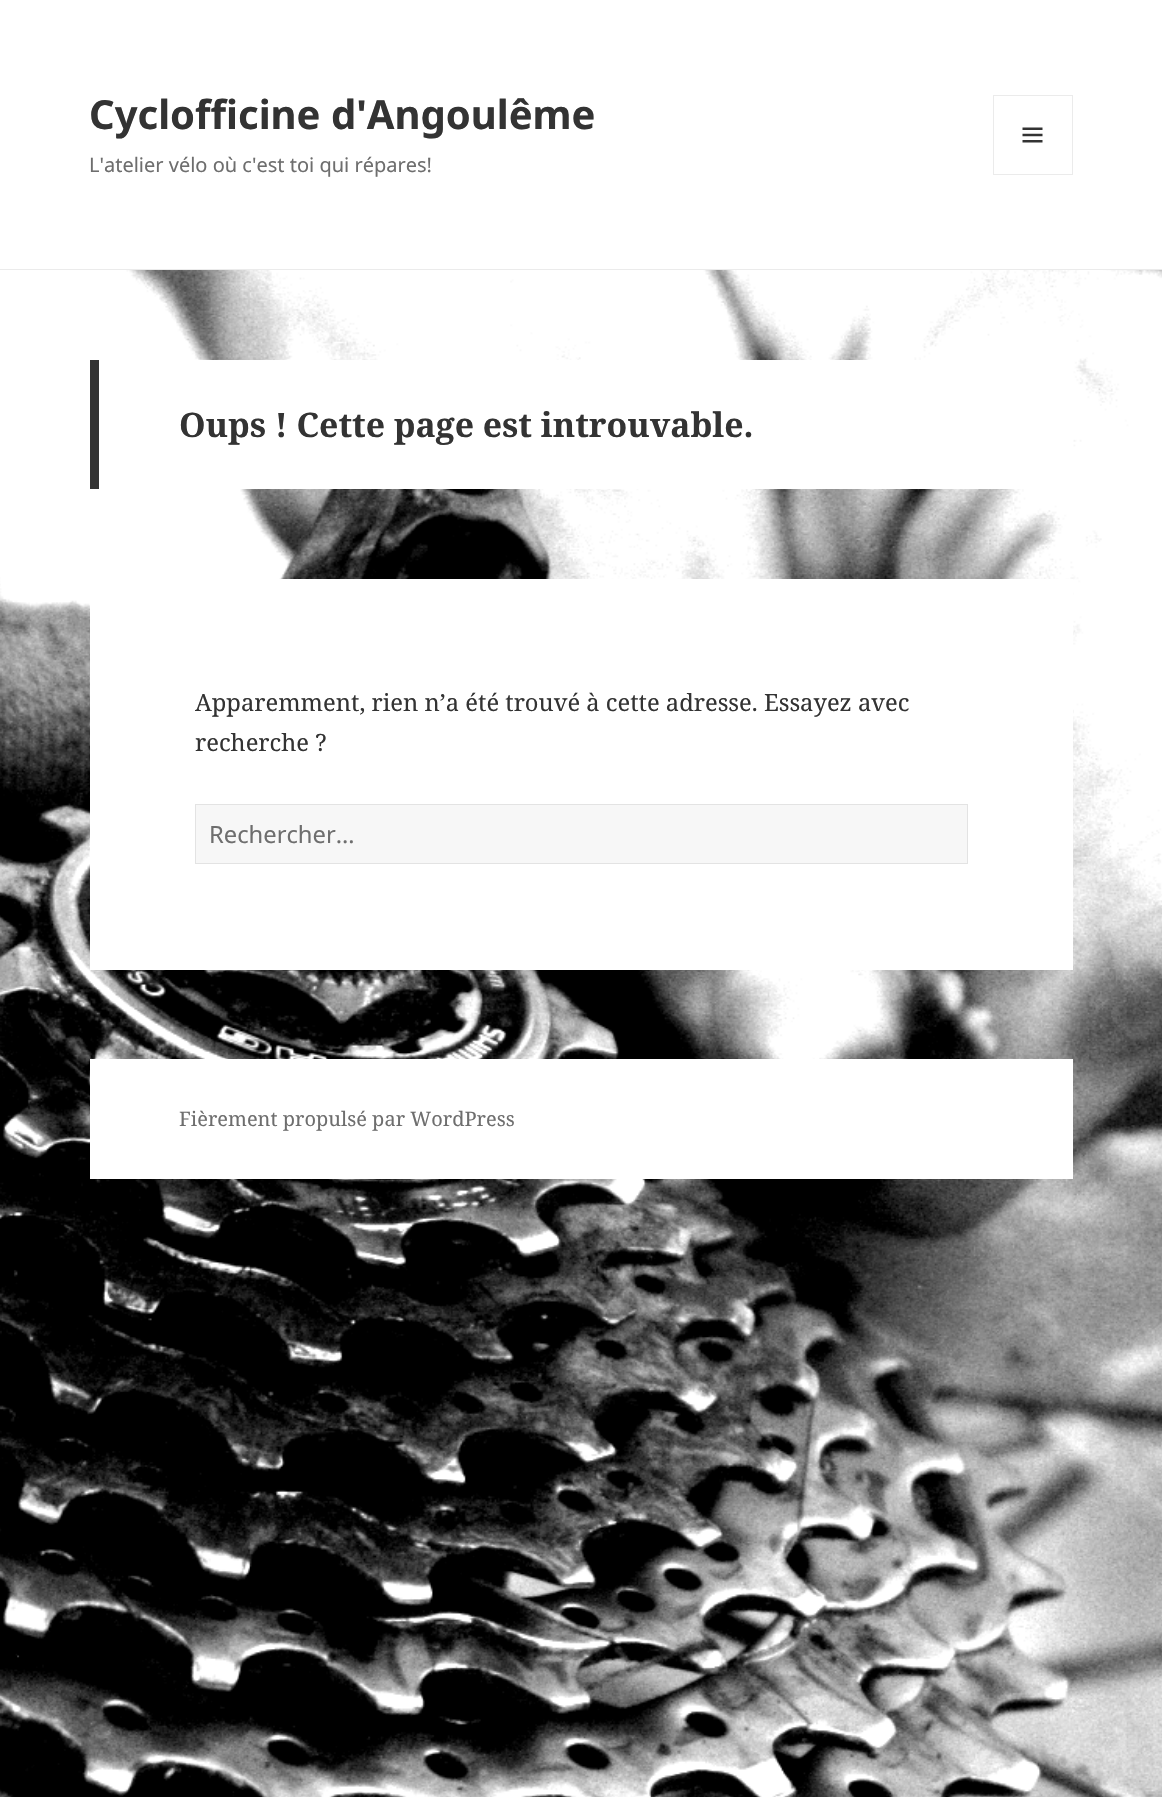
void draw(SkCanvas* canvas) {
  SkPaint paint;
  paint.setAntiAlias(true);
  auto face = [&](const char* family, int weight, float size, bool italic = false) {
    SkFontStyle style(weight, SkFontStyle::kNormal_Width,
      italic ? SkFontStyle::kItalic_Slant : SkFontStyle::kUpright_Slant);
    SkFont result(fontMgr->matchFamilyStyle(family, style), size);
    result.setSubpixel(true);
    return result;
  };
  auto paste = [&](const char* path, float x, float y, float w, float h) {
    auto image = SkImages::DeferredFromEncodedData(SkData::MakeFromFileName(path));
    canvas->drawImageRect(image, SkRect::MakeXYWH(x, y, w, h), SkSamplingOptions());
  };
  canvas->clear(0xffffffff);
  paste("img/1.png", 0, 270, 1162, 1527);
  paint.setColor(0xffebebeb);
  canvas->drawRect(SkRect::MakeXYWH(0, 269, 1162, 1), paint);
  paint.setStroke(true);
  paint.setStrokeWidth(1);
  canvas->drawRect(SkRect::MakeXYWH(993.5f, 95.5f, 79, 79), paint);
  paste("img/2.png", 1022, 127, 21, 16);
  paint.setStroke(false);
  {
    const struct { float x, y, w, h; SkColor color; } items[] = {
      {198, 360, 873, 129, 0xffffffff},
      {90, 360, 9, 129, 0xff333333},
      {90, 579, 983, 391, 0xffffffff},
    };
    for (auto [x, y, w, h, color] : items) {
      paint.setColor(color);
      canvas->drawRect(SkRect::MakeXYWH(x, y, w, h), paint);
    }
  }
  paint.setColor(0xfff7f7f7);
  canvas->drawRect(SkRect::MakeXYWH(195.5f, 804.5f, 772, 59), paint);
  paint.setStroke(true);
  paint.setColor(0xffe3e3e3);
  canvas->drawRect(SkRect::MakeXYWH(195.5f, 804.5f, 772, 59), paint);
  paint.setStroke(false);
  paint.setColor(0xffffffff);
  canvas->drawRect(SkRect::MakeXYWH(90, 1059, 983, 120), paint);
  auto f0 = face("Noto Sans", 700, 40);
  paint.setColor(0xff333333);
  canvas->drawString("Cyclofficine d'Angoulême", 89, 129, f0, paint);
  auto f1 = face("Noto Sans", 400, 20);
  paint.setColor(0xff6e6e6e);
  canvas->drawString("L'atelier vélo où c'est toi qui répares!", 89, 172, f1, paint);
  auto f2 = face("Noto Serif", 700, 33.75f);
  paint.setColor(0xff333333);
  canvas->drawString("Oups ! Cette page est introuvable.", 179, 437, f2, paint);
  auto f3 = face("Noto Serif", 400, 23.75f);
  canvas->drawString("Apparemment, rien n’a été trouvé à cette adresse. Essayez avec", 195, 711, f3, paint);
  canvas->drawString("recherche ?", 195, 751, f3, paint);
  auto f4 = face("Noto Sans", 400, 23.75f);
  paint.setColor(0xff6e6e6e);
  canvas->drawString("Rechercher…", 209, 843, f4, paint);
  auto f5 = face("Noto Serif", 400, 20);
  canvas->drawString("Fièrement propulsé par WordPress", 179, 1126, f5, paint);
}
